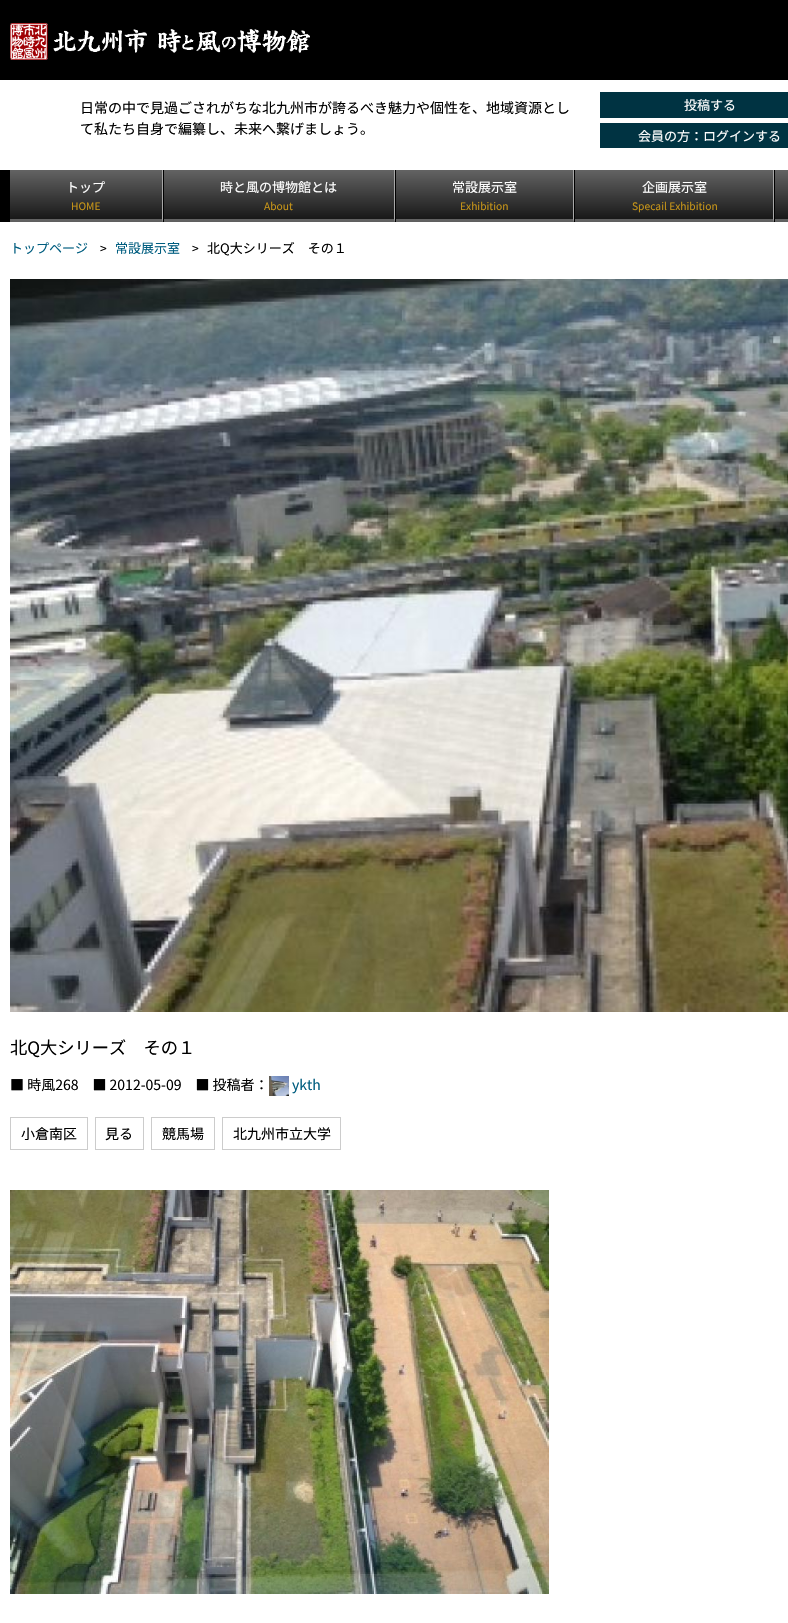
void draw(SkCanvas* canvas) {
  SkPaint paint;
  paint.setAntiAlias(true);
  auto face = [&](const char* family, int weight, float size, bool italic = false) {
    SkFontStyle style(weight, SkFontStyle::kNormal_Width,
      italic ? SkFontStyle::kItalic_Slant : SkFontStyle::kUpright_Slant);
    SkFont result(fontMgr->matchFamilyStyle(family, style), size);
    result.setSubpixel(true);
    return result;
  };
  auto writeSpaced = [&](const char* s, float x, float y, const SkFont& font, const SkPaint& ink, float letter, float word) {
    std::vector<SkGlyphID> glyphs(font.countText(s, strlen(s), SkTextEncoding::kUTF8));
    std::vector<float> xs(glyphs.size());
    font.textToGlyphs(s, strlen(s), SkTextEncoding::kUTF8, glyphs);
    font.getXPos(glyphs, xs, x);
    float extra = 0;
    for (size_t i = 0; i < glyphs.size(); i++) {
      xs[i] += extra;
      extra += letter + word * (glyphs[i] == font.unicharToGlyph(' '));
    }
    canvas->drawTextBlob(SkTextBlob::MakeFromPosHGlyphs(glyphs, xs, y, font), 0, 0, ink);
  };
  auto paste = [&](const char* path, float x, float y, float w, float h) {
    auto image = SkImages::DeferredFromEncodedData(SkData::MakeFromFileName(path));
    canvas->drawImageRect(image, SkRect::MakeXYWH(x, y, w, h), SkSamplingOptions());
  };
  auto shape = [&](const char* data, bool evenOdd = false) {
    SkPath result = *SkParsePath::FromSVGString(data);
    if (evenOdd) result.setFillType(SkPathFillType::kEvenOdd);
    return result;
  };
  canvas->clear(0xffffffff);
  paint.setColor(0xff000000);
  canvas->drawRect(SkRect::MakeXYWH(0, 0, 788, 80), paint);
  paste("img/1.png", 10, 23, 300, 37);
  {
    const struct { float x, y, w, h; SkColor color; } items[] = {
      {600, 92, 188, 26, 0xff003342},
      {600, 123, 188, 25, 0xff003342},
      {0, 170, 775, 52, 0xff000000},
    };
    for (auto [x, y, w, h, color] : items) {
      paint.setColor(color);
      canvas->drawRect(SkRect::MakeXYWH(x, y, w, h), paint);
    }
  }
  {
    const SkColor colors[] = {0xff636363, 0xff181818};
    const float stops[] = {0, 1};
    const SkPoint ends[] = {{86, 170}, {86, 219}};
    paint.setShader(SkGradientShader::MakeLinear(ends, colors, stops, 2, SkTileMode::kClamp));
    paint.setAlpha(255);
  }
  canvas->drawRect(SkRect::MakeXYWH(10, 170, 152, 49), paint);
  {
    const SkColor colors[] = {0xff636363, 0xff181818};
    const float stops[] = {0, 1};
    const SkPoint ends[] = {{86, 219}, {86, 268}};
    paint.setShader(SkGradientShader::MakeLinear(ends, colors, stops, 2, SkTileMode::kClamp));
    paint.setAlpha(255);
  }
  canvas->drawRect(SkRect::MakeXYWH(10, 219, 153, 3), paint);
  paint.setShader(nullptr);
  paint.setColor(0xffa8a8a8);
  canvas->drawPath(shape("M163 170V222L162 219V170Z"), paint);
  {
    const SkColor colors[] = {0xff636363, 0xff181818};
    const float stops[] = {0, 1};
    const SkPoint ends[] = {{279, 170}, {279, 219}};
    paint.setShader(SkGradientShader::MakeLinear(ends, colors, stops, 2, SkTileMode::kClamp));
    paint.setAlpha(255);
  }
  canvas->drawRect(SkRect::MakeXYWH(164, 170, 230, 49), paint);
  {
    const SkColor colors[] = {0xff636363, 0xff181818};
    const float stops[] = {0, 1};
    const SkPoint ends[] = {{279, 219}, {279, 268}};
    paint.setShader(SkGradientShader::MakeLinear(ends, colors, stops, 2, SkTileMode::kClamp));
    paint.setAlpha(255);
  }
  canvas->drawRect(SkRect::MakeXYWH(164, 219, 231, 3), paint);
  paint.setShader(nullptr);
  paint.setColor(0xffa8a8a8);
  canvas->drawPath(shape("M395 170V222L394 219V170Z"), paint);
  {
    const SkColor colors[] = {0xff636363, 0xff181818};
    const float stops[] = {0, 1};
    const SkPoint ends[] = {{485, 170}, {485, 219}};
    paint.setShader(SkGradientShader::MakeLinear(ends, colors, stops, 2, SkTileMode::kClamp));
    paint.setAlpha(255);
  }
  canvas->drawRect(SkRect::MakeXYWH(396, 170, 177, 49), paint);
  {
    const SkColor colors[] = {0xff636363, 0xff181818};
    const float stops[] = {0, 1};
    const SkPoint ends[] = {{485, 219}, {485, 268}};
    paint.setShader(SkGradientShader::MakeLinear(ends, colors, stops, 2, SkTileMode::kClamp));
    paint.setAlpha(255);
  }
  canvas->drawRect(SkRect::MakeXYWH(396, 219, 178, 3), paint);
  paint.setShader(nullptr);
  paint.setColor(0xffa8a8a8);
  canvas->drawPath(shape("M574 170V222L573 219V170Z"), paint);
  {
    const SkColor colors[] = {0xff636363, 0xff181818};
    const float stops[] = {0, 1};
    const SkPoint ends[] = {{674, 170}, {674, 219}};
    paint.setShader(SkGradientShader::MakeLinear(ends, colors, stops, 2, SkTileMode::kClamp));
    paint.setAlpha(255);
  }
  canvas->drawRect(SkRect::MakeXYWH(575, 170, 198, 49), paint);
  {
    const SkColor colors[] = {0xff636363, 0xff181818};
    const float stops[] = {0, 1};
    const SkPoint ends[] = {{674, 219}, {674, 268}};
    paint.setShader(SkGradientShader::MakeLinear(ends, colors, stops, 2, SkTileMode::kClamp));
    paint.setAlpha(255);
  }
  canvas->drawRect(SkRect::MakeXYWH(575, 219, 199, 3), paint);
  paint.setShader(nullptr);
  paint.setColor(0xffa8a8a8);
  canvas->drawPath(shape("M774 170V222L773 219V170Z"), paint);
  {
    const SkColor colors[] = {0xff636363, 0xff181818};
    const float stops[] = {0, 1};
    const SkPoint ends[] = {{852, 170}, {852, 219}};
    paint.setShader(SkGradientShader::MakeLinear(ends, colors, stops, 2, SkTileMode::kClamp));
    paint.setAlpha(255);
  }
  canvas->drawRect(SkRect::MakeXYWH(775, 170, 13, 49), paint);
  {
    const SkColor colors[] = {0xff636363, 0xff181818};
    const float stops[] = {0, 1};
    const SkPoint ends[] = {{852, 219}, {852, 268}};
    paint.setShader(SkGradientShader::MakeLinear(ends, colors, stops, 2, SkTileMode::kClamp));
    paint.setAlpha(255);
  }
  canvas->drawRect(SkRect::MakeXYWH(775, 219, 13, 3), paint);
  paste("img/2.png", 10, 279, 778, 733);
  paste("img/3.png", 269, 1076, 20, 20);
  paint.setStroke(true);
  paint.setStrokeWidth(1);
  paint.setShader(nullptr);
  paint.setColor(0xffcccccc);
  canvas->drawRect(SkRect::MakeXYWH(10.5f, 1117.5f, 77, 32), paint);
  canvas->drawRect(SkRect::MakeXYWH(95.5f, 1117.5f, 48, 32), paint);
  canvas->drawRect(SkRect::MakeXYWH(151.5f, 1117.5f, 63, 32), paint);
  canvas->drawRect(SkRect::MakeXYWH(222.5f, 1117.5f, 118, 32), paint);
  paste("img/4.png", 10, 1190, 539, 404);
  auto f0 = face("Noto Sans JP", 400, 14);
  paint.setStroke(false);
  paint.setColor(0xff000000);
  canvas->drawString("日常の中で見過ごされがちな北九州市が誇るべき魅力や個性を、地域資源とし", 80, 113, f0, paint);
  canvas->drawString("て私たち自身で編纂し、未来へ繋げましょう。", 80, 134, f0, paint);
  auto f1 = face("Noto Sans JP", 400, 13);
  paint.setColor(0xffffffff);
  {
    const struct { const char* s; float x, y; } items[] = {
      {"投稿する", 684, 110},
      {"会員の方：ログインする", 638, 141},
      {"トップ", 66, 192},
    };
    for (auto [s, x, y] : items) {
      canvas->drawString(s, x, y, f1, paint);
    }
  }
  auto f2 = face("Noto Sans JP", 400, 10.25f);
  paint.setColor(0xffc79518);
  canvas->drawString("HOME", 71, 210, f2, paint);
  paint.setColor(0xffffffff);
  canvas->drawString("時と風の博物館とは", 220, 192, f1, paint);
  paint.setColor(0xffc79518);
  canvas->drawString("About", 264, 210, f2, paint);
  paint.setColor(0xffffffff);
  canvas->drawString("常設展示室", 452, 192, f1, paint);
  paint.setColor(0xffc79518);
  canvas->drawString("Exhibition", 460, 210, f2, paint);
  paint.setColor(0xffffffff);
  canvas->drawString("企画展示室", 642, 192, f1, paint);
  paint.setColor(0xffc79518);
  canvas->drawString("Specail Exhibition", 632, 210, f2, paint);
  paint.setColor(0xff005d7f);
  canvas->drawString("トップページ", 10, 253, f1, paint);
  auto f3 = face("Noto Sans JP", 400, 12);
  paint.setColor(0xff000000);
  writeSpaced(">", 100, 253, f3, paint, -3, 0);
  paint.setColor(0xff005d7f);
  canvas->drawString("常設展示室", 115, 253, f1, paint);
  paint.setColor(0xff000000);
  writeSpaced(">", 192, 253, f3, paint, -3, 0);
  canvas->drawString("北Q大シリーズ　その１", 207, 253, f1, paint);
  auto f4 = face("Noto Sans JP", 400, 17.25f);
  canvas->drawString("北Q大シリーズ　その１", 10, 1054, f4, paint);
  canvas->drawString("■ 時風268　■ 2012-05-09　■ 投稿者：", 10, 1090, f0, paint);
  paint.setColor(0xff005d7f);
  canvas->drawString("ykth", 292, 1090, f0, paint);
  paint.setColor(0xff000000);
  {
    const struct { const char* s; float x, y; } items[] = {
      {"小倉南区", 21, 1139},
      {"見る", 105, 1139},
      {"競馬場", 162, 1139},
      {"北九州市立大学", 233, 1139},
    };
    for (auto [s, x, y] : items) {
      canvas->drawString(s, x, y, f0, paint);
    }
  }
}
